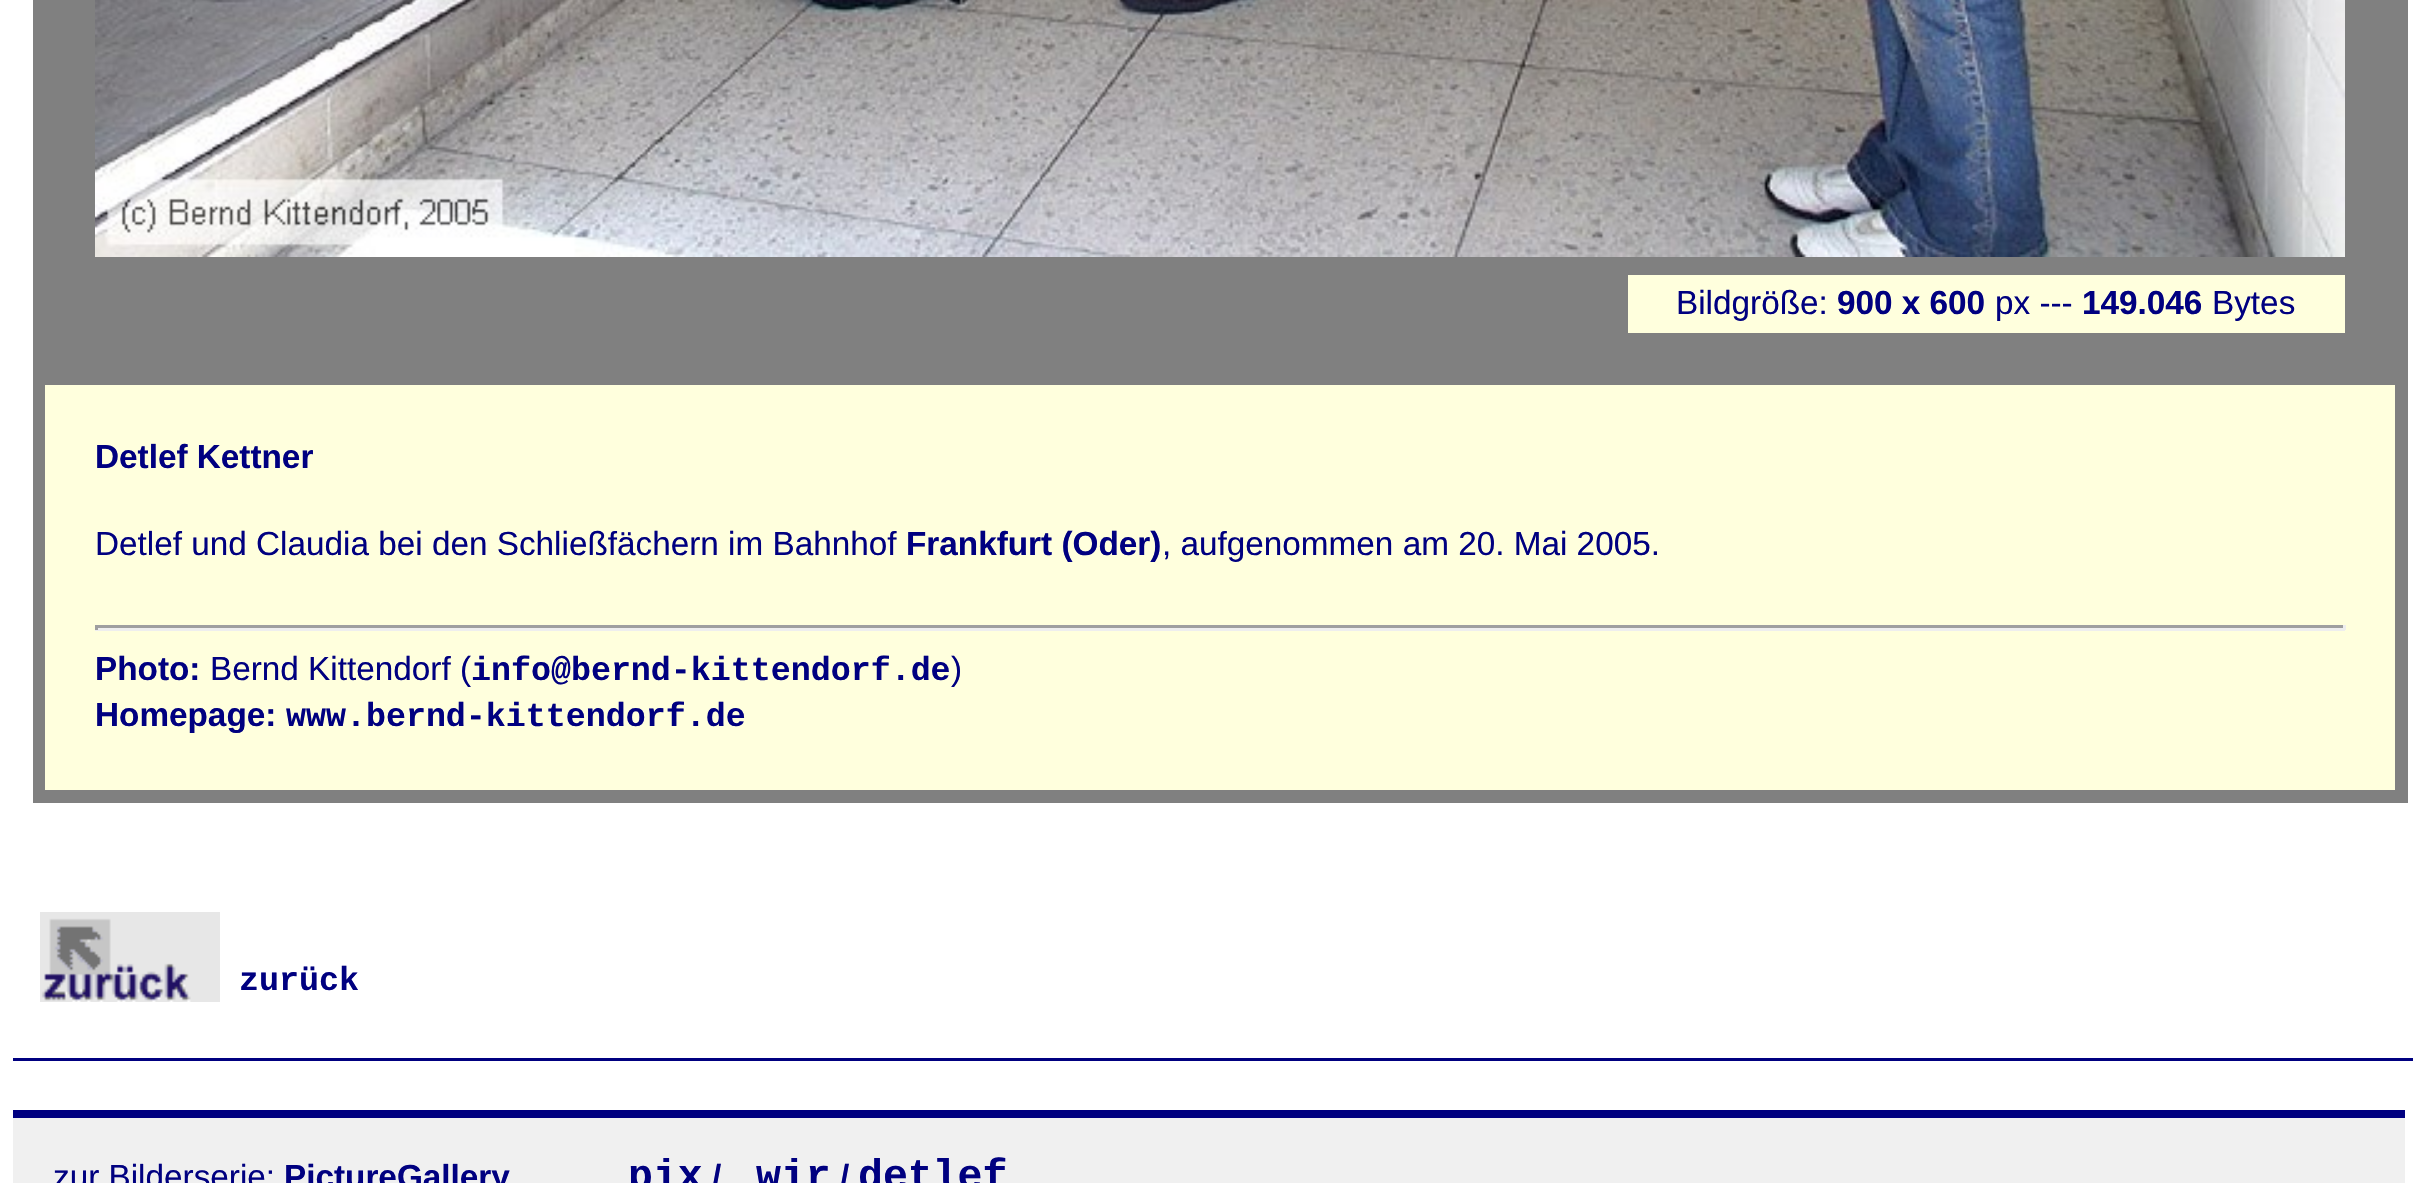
void draw(SkCanvas* canvas) {
  SkPaint paint;
  paint.setAntiAlias(true);
  auto face = [&](const char* family, int weight, float size, bool italic = false) {
    SkFontStyle style(weight, SkFontStyle::kNormal_Width,
      italic ? SkFontStyle::kItalic_Slant : SkFontStyle::kUpright_Slant);
    SkFont result(fontMgr->matchFamilyStyle(family, style), size);
    result.setSubpixel(true);
    return result;
  };
  auto paste = [&](const char* path, float x, float y, float w, float h) {
    auto image = SkImages::DeferredFromEncodedData(SkData::MakeFromFileName(path));
    canvas->drawImageRect(image, SkRect::MakeXYWH(x, y, w, h), SkSamplingOptions());
  };
  canvas->clear(0xffffffff);
  paint.setColor(0xff000080);
  canvas->drawRect(SkRect::MakeXYWH(13, 1058, 2400, 3), paint);
  paint.setColor(0xff808080);
  canvas->drawRect(SkRect::MakeXYWH(45, 0, 2350, 270), paint);
  paste("img/1.png", 95, 0, 2250, 257);
  {
    const struct { float x, y, w, h; SkColor color; } items[] = {
      {45, 270, 2350, 115, 0xff808080},
      {1628, 275, 717, 58, 0xffffffdd},
      {45, 385, 2350, 405, 0xffffffdd},
      {2395, 0, 13, 790, 0xff808080},
      {45, 790, 2363, 13, 0xff808080},
      {33, 0, 12, 803, 0xff808080},
      {95, 625, 2250, 3, 0xff9f9f9f},
      {2343, 625, 3, 5, 0xffeeeeee},
      {95, 628, 2250, 3, 0xffeeeeee},
      {95, 625, 3, 5, 0xff9f9f9f},
    };
    for (auto [x, y, w, h, color] : items) {
      paint.setColor(color);
      canvas->drawRect(SkRect::MakeXYWH(x, y, w, h), paint);
    }
  }
  paste("img/2.png", 40, 912, 180, 90);
  paint.setColor(0xfff0f0f0);
  canvas->drawRect(SkRect::MakeXYWH(13, 1118, 2392, 65), paint);
  paint.setColor(0xff000080);
  canvas->drawRect(SkRect::MakeXYWH(13, 1110, 2392, 8), paint);
  auto f0 = face("Liberation Sans", 400, 33.3f);
  canvas->drawString("Bildgröße:", 1676, 314, f0, paint);
  auto f1 = face("Liberation Sans", 700, 33.3f);
  canvas->drawString("900 x 600", 1837, 314, f1, paint);
  canvas->drawString("px ---", 1995, 314, f0, paint);
  canvas->drawString("149.046", 2082, 314, f1, paint);
  canvas->drawString("Bytes", 2212, 314, f0, paint);
  canvas->drawString("Detlef Kettner", 95, 468, f1, paint);
  canvas->drawString("Detlef und Claudia bei den Schließfächern im Bahnhof", 95, 555, f0, paint);
  canvas->drawString("Frankfurt (Oder)", 906, 555, f1, paint);
  canvas->drawString(", aufgenommen am 20. Mai 2005.", 1162, 555, f0, paint);
  canvas->drawString("Photo:", 95, 680, f1, paint);
  canvas->drawString("Bernd Kittendorf (", 210, 680, f0, paint);
  auto f2 = face("Liberation Mono", 700, 33.3f);
  canvas->drawString("info@bernd-kittendorf.de", 471, 680, f2, paint);
  canvas->drawString(")", 951, 680, f0, paint);
  canvas->drawString("Homepage:", 95, 726, f1, paint);
  canvas->drawString("www.bernd-kittendorf.de", 286, 726, f2, paint);
  canvas->drawString("zurück", 239, 990, f2, paint);
  canvas->drawString("zur Bilderserie:", 53, 1188, f0, paint);
  canvas->drawString("PictureGallery", 284, 1188, f1, paint);
  auto f3 = face("Liberation Mono", 700, 41.5f);
  canvas->drawString("pix", 628, 1188, f3, paint);
  canvas->drawString("/", 712, 1188, f1, paint);
  canvas->drawString("wir", 756, 1188, f3, paint);
  canvas->drawString("/", 840, 1188, f1, paint);
  canvas->drawString("detlef", 858, 1188, f3, paint);
}
